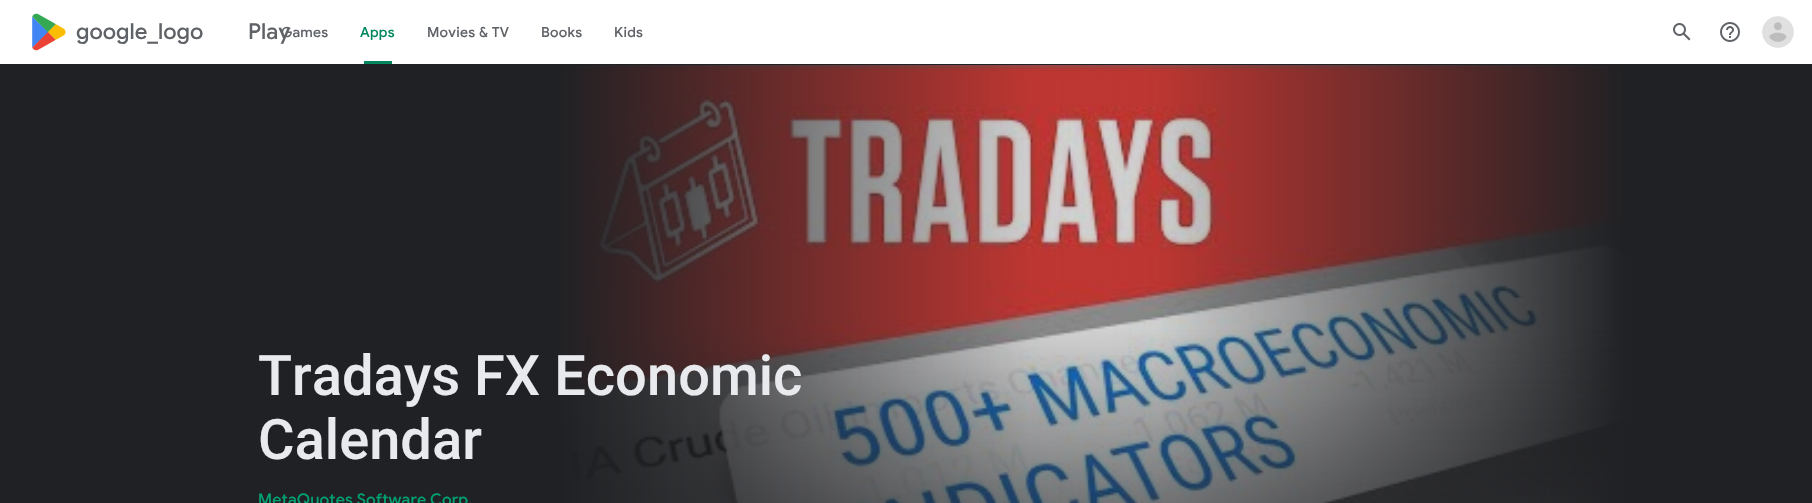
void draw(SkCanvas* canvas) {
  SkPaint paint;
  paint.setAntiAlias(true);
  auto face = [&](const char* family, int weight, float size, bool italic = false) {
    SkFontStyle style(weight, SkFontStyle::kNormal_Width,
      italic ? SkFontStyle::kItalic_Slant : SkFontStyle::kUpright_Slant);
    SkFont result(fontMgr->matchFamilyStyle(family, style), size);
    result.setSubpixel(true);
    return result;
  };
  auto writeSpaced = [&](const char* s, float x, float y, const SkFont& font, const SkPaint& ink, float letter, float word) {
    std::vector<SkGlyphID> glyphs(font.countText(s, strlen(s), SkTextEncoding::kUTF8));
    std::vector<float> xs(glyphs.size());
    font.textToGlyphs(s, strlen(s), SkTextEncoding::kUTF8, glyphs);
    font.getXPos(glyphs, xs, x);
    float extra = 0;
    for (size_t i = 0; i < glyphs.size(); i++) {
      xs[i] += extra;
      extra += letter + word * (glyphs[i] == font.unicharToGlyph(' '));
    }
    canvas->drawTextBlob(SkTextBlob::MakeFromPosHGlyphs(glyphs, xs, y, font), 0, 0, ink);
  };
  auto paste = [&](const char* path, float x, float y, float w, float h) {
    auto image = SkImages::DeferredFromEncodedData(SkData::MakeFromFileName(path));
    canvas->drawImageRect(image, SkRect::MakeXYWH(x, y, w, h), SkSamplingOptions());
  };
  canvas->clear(0xffffffff);
  paste("img/1.png", 32, 13, 34, 38);
  paint.setColor(0xff01875f);
  canvas->drawRect(SkRect::MakeXYWH(364, 61, 28, 3), paint);
  paste("img/2.png", 1673, 23, 18, 18);
  paste("img/3.png", 1720, 22, 20, 20);
  paste("img/4.png", 1762, 16, 32, 32);
  paint.setColor(0xff202124);
  canvas->drawRect(SkRect::MakeXYWH(0, 64, 1812, 439), paint);
  paste("img/5.png", 560, 65, 1065, 438);
  auto f0 = face("Google Sans", 500, 22);
  paint.setColor(0xff5f6368);
  writeSpaced("google_logo", 76, 39, f0, paint, 0, 55);
  writeSpaced("Play", 248, 39, f0, paint, 0, 55);
  auto f1 = face("Google Sans", 500, 14);
  writeSpaced("Games", 281, 37, f1, paint, 0.25f, 0);
  paint.setColor(0xff01875f);
  writeSpaced("Apps", 360, 37, f1, paint, 0.25f, 0);
  paint.setColor(0xff5f6368);
  {
    const struct { const char* s; float x, y; } items[] = {
      {"Movies & TV", 427, 37},
      {"Books", 541, 37},
      {"Kids", 614, 37},
    };
    for (auto [s, x, y] : items) {
      writeSpaced(s, x, y, f1, paint, 0.25f, 0);
    }
  }
  auto f2 = face("Roboto", 500, 56);
  paint.setColor(0xffe8eaed);
  canvas->drawString("Tradays FX Economic", 258, 395, f2, paint);
  canvas->drawString("Calendar", 258, 459, f2, paint);
  auto f3 = face("Google Sans", 500, 16);
  paint.setColor(0xff00a173);
  writeSpaced("MetaQuotes Software Corp.", 258, 505, f3, paint, 0.1f, 0);
}
